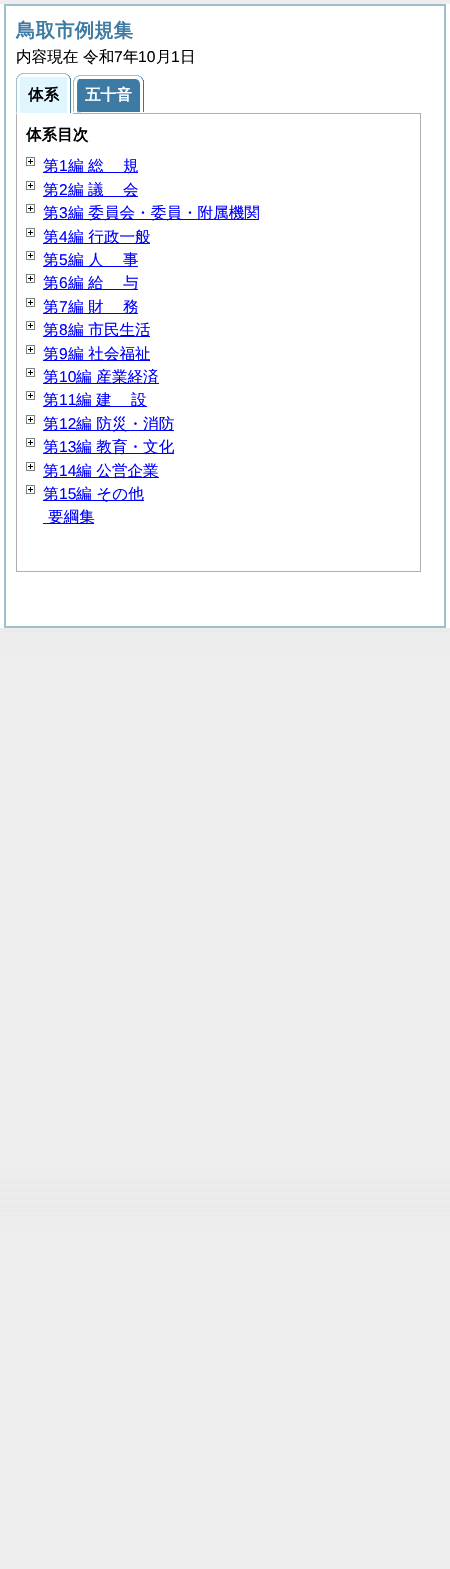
void draw(SkCanvas* canvas) {
  SkPaint paint;
  paint.setAntiAlias(true);
  auto face = [&](const char* family, int weight, float size, bool italic = false) {
    SkFontStyle style(weight, SkFontStyle::kNormal_Width,
      italic ? SkFontStyle::kItalic_Slant : SkFontStyle::kUpright_Slant);
    SkFont result(fontMgr->matchFamilyStyle(family, style), size);
    result.setSubpixel(true);
    return result;
  };
  auto writeSpaced = [&](const char* s, float x, float y, const SkFont& font, const SkPaint& ink, float letter, float word) {
    std::vector<SkGlyphID> glyphs(font.countText(s, strlen(s), SkTextEncoding::kUTF8));
    std::vector<float> xs(glyphs.size());
    font.textToGlyphs(s, strlen(s), SkTextEncoding::kUTF8, glyphs);
    font.getXPos(glyphs, xs, x);
    float extra = 0;
    for (size_t i = 0; i < glyphs.size(); i++) {
      xs[i] += extra;
      extra += letter + word * (glyphs[i] == font.unicharToGlyph(' '));
    }
    canvas->drawTextBlob(SkTextBlob::MakeFromPosHGlyphs(glyphs, xs, y, font), 0, 0, ink);
  };
  auto paste = [&](const char* path, float x, float y, float w, float h) {
    auto image = SkImages::DeferredFromEncodedData(SkData::MakeFromFileName(path));
    canvas->drawImageRect(image, SkRect::MakeXYWH(x, y, w, h), SkSamplingOptions());
  };
  canvas->clear(0xffffffff);
  paste("img/1.png", 0, 0, 450, 1569);
  paint.setColor(0xffffffff);
  canvas->drawRect(SkRect::MakeXYWH(0, 4, 450, 624), paint);
  paint.setStroke(true);
  paint.setStrokeWidth(2);
  paint.setColor(0xffa0bfcc);
  canvas->drawRect(SkRect::MakeXYWH(5, 5, 440, 622), paint);
  paint.setStrokeWidth(1);
  paint.setColor(0xffb5aba9);
  canvas->drawRect(SkRect::MakeXYWH(16.5f, 113.5f, 404, 458), paint);
  paint.setStroke(false);
  paint.setColor(0xffffffff);
  canvas->drawRect(SkRect::MakeXYWH(16, 113, 57, 1), paint);
  paste("img/2.png", 16, 73, 6, 41);
  paste("img/3.png", 22, 73, 49, 40);
  paste("img/4.png", 73, 73, 71, 40);
  paste("img/5.png", 79, 73, 65, 39);
  paste("img/6.png", 26, 157, 9, 9);
  paint.setColor(0xff0000ff);
  canvas->drawRect(SkRect::MakeXYWH(43, 172, 95, 1), paint);
  paste("img/6.png", 26, 181, 9, 9);
  canvas->drawRect(SkRect::MakeXYWH(43, 196, 95, 1), paint);
  paste("img/6.png", 26, 204, 9, 9);
  canvas->drawRect(SkRect::MakeXYWH(43, 219, 216, 1), paint);
  paste("img/6.png", 26, 228, 9, 9);
  canvas->drawRect(SkRect::MakeXYWH(43, 243, 107, 1), paint);
  paste("img/6.png", 26, 251, 9, 9);
  canvas->drawRect(SkRect::MakeXYWH(43, 266, 95, 1), paint);
  paste("img/6.png", 26, 274, 9, 9);
  canvas->drawRect(SkRect::MakeXYWH(43, 289, 95, 1), paint);
  paste("img/6.png", 26, 298, 9, 9);
  canvas->drawRect(SkRect::MakeXYWH(43, 313, 95, 1), paint);
  paste("img/6.png", 26, 321, 9, 9);
  canvas->drawRect(SkRect::MakeXYWH(43, 336, 107, 1), paint);
  paste("img/6.png", 26, 345, 9, 9);
  canvas->drawRect(SkRect::MakeXYWH(43, 360, 107, 1), paint);
  paste("img/6.png", 26, 368, 9, 9);
  canvas->drawRect(SkRect::MakeXYWH(43, 383, 116, 1), paint);
  paste("img/6.png", 26, 391, 9, 9);
  canvas->drawRect(SkRect::MakeXYWH(43, 406, 104, 1), paint);
  paste("img/6.png", 26, 415, 9, 9);
  canvas->drawRect(SkRect::MakeXYWH(43, 430, 131, 1), paint);
  paste("img/6.png", 26, 438, 9, 9);
  canvas->drawRect(SkRect::MakeXYWH(43, 453, 131, 1), paint);
  paste("img/6.png", 26, 462, 9, 9);
  canvas->drawRect(SkRect::MakeXYWH(43, 477, 116, 1), paint);
  paste("img/6.png", 26, 485, 9, 9);
  canvas->drawRect(SkRect::MakeXYWH(43, 500, 101, 1), paint);
  canvas->drawRect(SkRect::MakeXYWH(43, 523, 51, 1), paint);
  auto f0 = face("WenQuanYi Zen Hei", 700, 19.5f);
  paint.setColor(0xff3d7aa4);
  canvas->drawString("鳥取市例規集", 16, 37, f0, paint);
  auto f1 = face("WenQuanYi Zen Hei", 500, 15.6f);
  paint.setColor(0xff000000);
  canvas->drawString("内容現在 令和", 16, 62, f1, paint);
  auto f2 = face("Liberation Sans", 400, 15.6f);
  canvas->drawString("7", 114, 62, f2, paint);
  canvas->drawString("年", 123, 62, f1, paint);
  canvas->drawString("10", 138, 62, f2, paint);
  canvas->drawString("月", 156, 62, f1, paint);
  canvas->drawString("1", 171, 62, f2, paint);
  canvas->drawString("日", 180, 62, f1, paint);
  auto f3 = face("WenQuanYi Zen Hei", 700, 15.6f);
  canvas->drawString("体系", 28, 100, f3, paint);
  paint.setColor(0xffffffff);
  canvas->drawString("五十音", 85, 100, f3, paint);
  paint.setColor(0xff000000);
  canvas->drawString("体系目次", 26, 140, f3, paint);
  paint.setColor(0xff0000ff);
  canvas->drawString("第", 43, 171, f1, paint);
  canvas->drawString("1", 59, 171, f2, paint);
  canvas->drawString("編", 68, 171, f1, paint);
  writeSpaced("総", 88, 171, f1, paint, 20, 0);
  canvas->drawString("規", 123, 171, f1, paint);
  canvas->drawString("第", 43, 195, f1, paint);
  canvas->drawString("2", 59, 195, f2, paint);
  canvas->drawString("編", 68, 195, f1, paint);
  writeSpaced("議", 88, 195, f1, paint, 20, 0);
  canvas->drawString("会", 123, 195, f1, paint);
  canvas->drawString("第", 43, 218, f1, paint);
  canvas->drawString("3", 59, 218, f2, paint);
  canvas->drawString("編 委員会・委員・附属機関", 68, 218, f1, paint);
  canvas->drawString("第", 43, 242, f1, paint);
  canvas->drawString("4", 59, 242, f2, paint);
  canvas->drawString("編 行政一般", 68, 242, f1, paint);
  canvas->drawString("第", 43, 265, f1, paint);
  canvas->drawString("5", 59, 265, f2, paint);
  canvas->drawString("編", 68, 265, f1, paint);
  writeSpaced("人", 88, 265, f1, paint, 20, 0);
  canvas->drawString("事", 123, 265, f1, paint);
  canvas->drawString("第", 43, 288, f1, paint);
  canvas->drawString("6", 59, 288, f2, paint);
  canvas->drawString("編", 68, 288, f1, paint);
  writeSpaced("給", 88, 288, f1, paint, 20, 0);
  canvas->drawString("与", 123, 288, f1, paint);
  canvas->drawString("第", 43, 312, f1, paint);
  canvas->drawString("7", 59, 312, f2, paint);
  canvas->drawString("編", 68, 312, f1, paint);
  writeSpaced("財", 88, 312, f1, paint, 20, 0);
  canvas->drawString("務", 123, 312, f1, paint);
  canvas->drawString("第", 43, 335, f1, paint);
  canvas->drawString("8", 59, 335, f2, paint);
  canvas->drawString("編 市民生活", 68, 335, f1, paint);
  canvas->drawString("第", 43, 359, f1, paint);
  canvas->drawString("9", 59, 359, f2, paint);
  canvas->drawString("編 社会福祉", 68, 359, f1, paint);
  canvas->drawString("第", 43, 382, f1, paint);
  canvas->drawString("10", 59, 382, f2, paint);
  canvas->drawString("編 産業経済", 76, 382, f1, paint);
  canvas->drawString("第", 43, 405, f1, paint);
  canvas->drawString("11", 59, 405, f2, paint);
  canvas->drawString("編", 76, 405, f1, paint);
  writeSpaced("建", 96, 405, f1, paint, 20, 0);
  canvas->drawString("設", 131, 405, f1, paint);
  canvas->drawString("第", 43, 429, f1, paint);
  canvas->drawString("12", 59, 429, f2, paint);
  canvas->drawString("編 防災・消防", 76, 429, f1, paint);
  canvas->drawString("第", 43, 452, f1, paint);
  canvas->drawString("13", 59, 452, f2, paint);
  canvas->drawString("編 教育・文化", 76, 452, f1, paint);
  canvas->drawString("第", 43, 476, f1, paint);
  canvas->drawString("14", 59, 476, f2, paint);
  canvas->drawString("編 公営企業", 76, 476, f1, paint);
  canvas->drawString("第", 43, 499, f1, paint);
  canvas->drawString("15", 59, 499, f2, paint);
  canvas->drawString("編 その他", 76, 499, f1, paint);
  canvas->drawString("要綱集", 48, 522, f1, paint);
}
